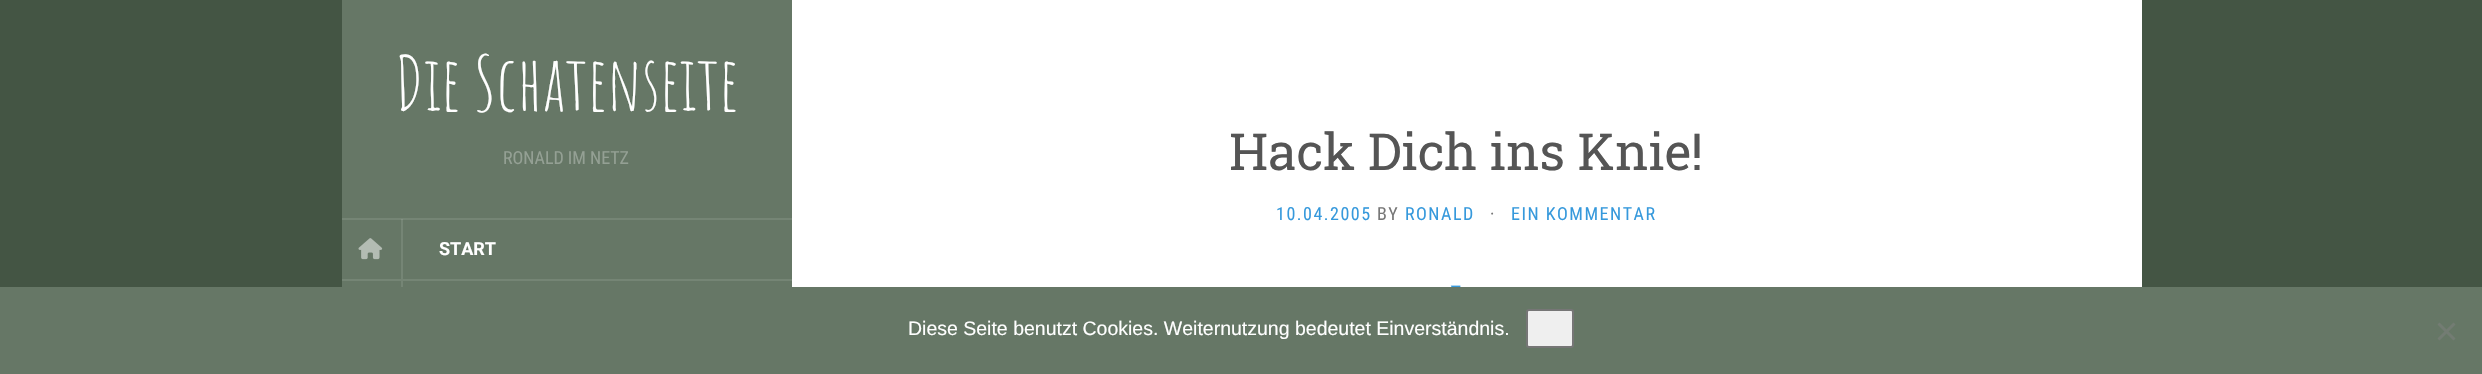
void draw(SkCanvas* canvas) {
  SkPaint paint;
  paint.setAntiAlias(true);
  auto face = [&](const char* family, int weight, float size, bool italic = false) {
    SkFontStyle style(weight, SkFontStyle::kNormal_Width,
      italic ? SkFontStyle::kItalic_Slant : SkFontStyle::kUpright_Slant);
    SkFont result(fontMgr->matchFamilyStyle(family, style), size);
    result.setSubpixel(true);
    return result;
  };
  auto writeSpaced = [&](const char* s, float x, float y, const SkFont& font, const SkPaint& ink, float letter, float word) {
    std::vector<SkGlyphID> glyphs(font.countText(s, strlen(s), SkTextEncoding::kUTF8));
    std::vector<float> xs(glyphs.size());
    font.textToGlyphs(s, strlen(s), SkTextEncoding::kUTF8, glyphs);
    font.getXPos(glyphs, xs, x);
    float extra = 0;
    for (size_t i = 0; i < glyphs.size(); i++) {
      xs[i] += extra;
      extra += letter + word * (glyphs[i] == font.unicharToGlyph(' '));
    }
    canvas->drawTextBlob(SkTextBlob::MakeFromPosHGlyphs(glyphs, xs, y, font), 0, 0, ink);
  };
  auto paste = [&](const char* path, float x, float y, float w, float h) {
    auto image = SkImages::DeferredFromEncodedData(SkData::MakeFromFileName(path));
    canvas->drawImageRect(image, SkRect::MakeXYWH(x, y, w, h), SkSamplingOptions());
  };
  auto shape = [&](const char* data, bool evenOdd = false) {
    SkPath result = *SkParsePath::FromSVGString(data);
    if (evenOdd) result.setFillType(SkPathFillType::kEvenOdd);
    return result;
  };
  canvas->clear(0xff445544);
  {
    const struct { float x, y, w, h; SkColor color; } items[] = {
      {792, 0, 1350, 287, 0xffffffff},
      {342, 0, 450, 287, 0xff667766},
      {401, 219, 2, 60, 0xff758575},
      {342, 218, 450, 2, 0xff758575},
      {401, 219, 2, 1, 0xff839183},
      {342, 279, 450, 2, 0xff758575},
    };
    for (auto [x, y, w, h, color] : items) {
      paint.setColor(color);
      canvas->drawRect(SkRect::MakeXYWH(x, y, w, h), paint);
    }
  }
  paste("img/1.png", 358, 238, 25, 22);
  canvas->drawRect(SkRect::MakeXYWH(401, 281, 2, 6), paint);
  paste("img/2.png", 1450, 285, 11, 2);
  paint.setColor(0xff667766);
  canvas->drawRect(SkRect::MakeXYWH(0, 287, 2482, 87), paint);
  paint.setColor(0xffefefef);
  canvas->drawRoundRect(SkRect::MakeXYWH(1527, 310, 46, 37), 2, 2, paint);
  paint.setStroke(true);
  paint.setStrokeWidth(2);
  paint.setColor(0xff767676);
  canvas->drawRoundRect(SkRect::MakeXYWH(1527, 310, 46, 37), 2, 2, paint);
  paint.setStroke(false);
  paint.setColor(0xff737c73);
  canvas->drawPath(shape("M2453.5 322.5L2455.5 324.5L2439.5 340.5L2437.5 338.5Z"), paint);
  canvas->drawPath(shape("M2437.5 324.5L2439.5 322.5L2455.5 338.5L2453.5 340.5Z"), paint);
  auto f0 = face("Amatic SC", 400, 75);
  paint.setColor(0xffffffff);
  canvas->drawString("Die Schatenseite", 395, 111, f0, paint);
  auto f1 = face("Roboto Condensed", 400, 18);
  paint.setColor(0xff94a094);
  canvas->drawString("RONALD IM NETZ", 503, 164, f1, paint);
  auto f2 = face("Roboto", 700, 18);
  paint.setColor(0xffffffff);
  canvas->drawString("START", 439, 255, f2, paint);
  auto f3 = face("Roboto Slab", 400, 51);
  paint.setColor(0xff555555);
  canvas->drawString("Hack Dich ins Knie!", 1229, 170, f3, paint);
  paint.setColor(0xff3699dc);
  writeSpaced("10.04.2005", 1276, 220, f1, paint, 1.5f, 0);
  paint.setColor(0xff777777);
  writeSpaced("BY", 1377, 220, f1, paint, 1.5f, 0);
  paint.setColor(0xff3699dc);
  writeSpaced("RONALD", 1405, 220, f1, paint, 1.5f, 0);
  paint.setColor(0xff777777);
  writeSpaced("·", 1490, 220, f1, paint, 1.5f, 0);
  paint.setColor(0xff3699dc);
  writeSpaced("EIN KOMMENTAR", 1511, 220, f1, paint, 1.5f, 0);
  auto f4 = face("Liberation Sans", 400, 19.5f);
  paint.setColor(0xffffffff);
  canvas->drawString("Diese Seite benutzt Cookies. Weiternutzung bedeutet Einverständnis.", 908, 335, f4, paint);
}
